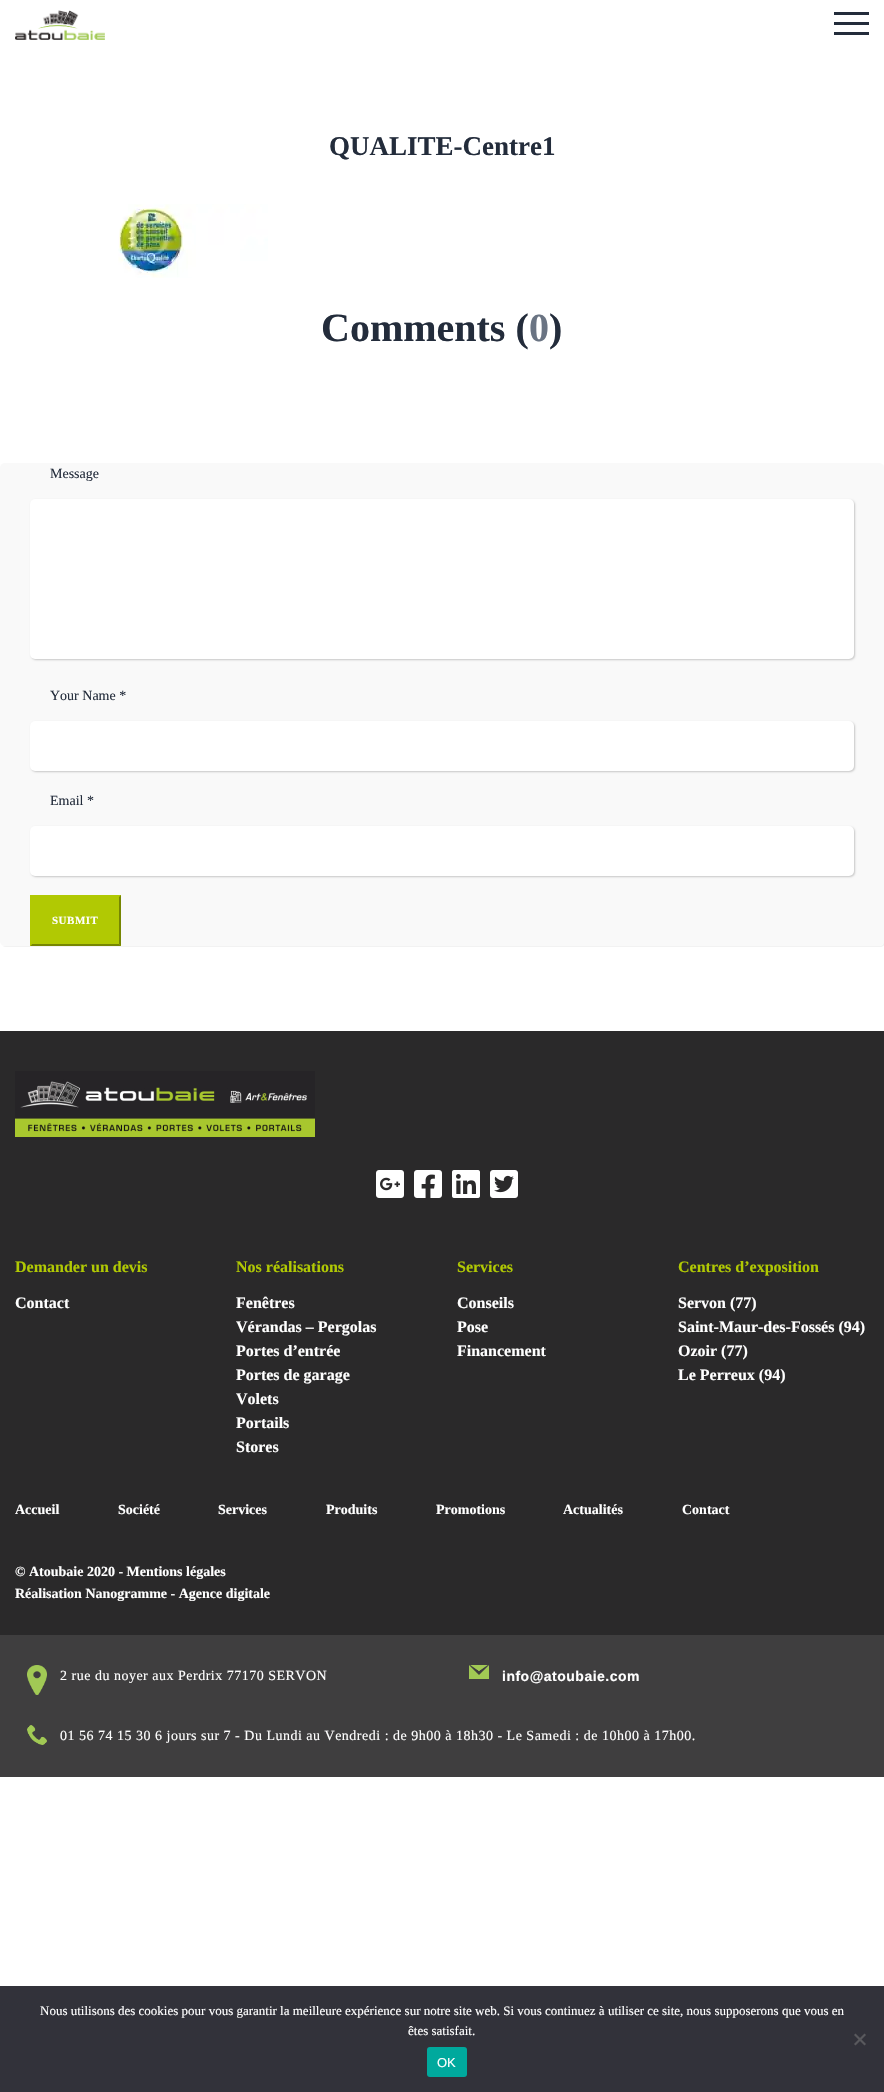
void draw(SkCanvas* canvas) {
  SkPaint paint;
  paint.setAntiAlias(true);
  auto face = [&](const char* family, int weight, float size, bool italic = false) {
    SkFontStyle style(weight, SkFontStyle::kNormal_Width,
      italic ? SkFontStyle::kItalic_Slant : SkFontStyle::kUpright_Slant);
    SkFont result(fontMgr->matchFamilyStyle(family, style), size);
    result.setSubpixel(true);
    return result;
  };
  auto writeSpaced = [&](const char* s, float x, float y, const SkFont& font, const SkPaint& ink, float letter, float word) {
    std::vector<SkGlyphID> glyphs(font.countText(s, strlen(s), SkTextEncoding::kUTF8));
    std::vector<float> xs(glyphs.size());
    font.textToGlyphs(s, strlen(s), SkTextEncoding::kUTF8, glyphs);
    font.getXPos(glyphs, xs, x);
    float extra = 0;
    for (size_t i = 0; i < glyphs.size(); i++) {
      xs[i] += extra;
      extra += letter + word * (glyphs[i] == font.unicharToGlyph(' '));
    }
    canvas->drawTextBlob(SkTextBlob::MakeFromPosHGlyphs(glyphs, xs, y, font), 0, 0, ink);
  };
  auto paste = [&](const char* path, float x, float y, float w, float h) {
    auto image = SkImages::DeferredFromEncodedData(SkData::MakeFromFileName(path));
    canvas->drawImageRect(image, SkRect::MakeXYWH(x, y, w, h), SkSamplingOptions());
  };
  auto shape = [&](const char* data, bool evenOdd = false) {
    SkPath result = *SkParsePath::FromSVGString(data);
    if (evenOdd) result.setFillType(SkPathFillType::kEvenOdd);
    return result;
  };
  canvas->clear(0xffffffff);
  paste("img/1.png", 15, 10, 90, 30);
  {
    const struct { float x, y, w, h; SkColor color; } items[] = {
      {834, 12, 35, 3, 0xff232c3b},
      {834, 22, 35, 3, 0xff232c3b},
      {834, 32, 35, 3, 0xff232c3b},
    };
    for (auto [x, y, w, h, color] : items) {
      paint.setColor(color);
      canvas->drawRect(SkRect::MakeXYWH(x, y, w, h), paint);
    }
  }
  paste("img/2.png", 118, 204, 150, 74);
  paint.setColor(0xfff2f2f2);
  canvas->drawPath(shape("M2 945C3 946 4 947 6 947H880C883 947 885 945 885 942V469C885 467 884 466 883 465C884 466 884 467 884 468V941C884 944 882 946 879 946H5C4 946 3 946 2 945Z"), paint);
  paint.setColor(0xfff9f9f9);
  canvas->drawRoundRect(SkRect::MakeXYWH(0, 463, 884, 483), 5, 5, paint);
  paint.setColor(0x33000000);
  paint.setMaskFilter(SkMaskFilter::MakeBlur(kNormal_SkBlurStyle, 1));
  canvas->drawRoundRect(SkRect::MakeXYWH(31, 500, 824, 160), 5, 5, paint);
  paint.setMaskFilter(nullptr);
  paint.setColor(0xffffffff);
  canvas->drawRoundRect(SkRect::MakeXYWH(30, 499, 824, 160), 5, 5, paint);
  paint.setColor(0x33000000);
  paint.setMaskFilter(SkMaskFilter::MakeBlur(kNormal_SkBlurStyle, 1));
  canvas->drawRoundRect(SkRect::MakeXYWH(31, 722, 824, 50), 5, 5, paint);
  paint.setMaskFilter(nullptr);
  paint.setColor(0xffffffff);
  canvas->drawRoundRect(SkRect::MakeXYWH(30, 721, 824, 50), 5, 5, paint);
  paint.setColor(0x33000000);
  paint.setMaskFilter(SkMaskFilter::MakeBlur(kNormal_SkBlurStyle, 1));
  canvas->drawRoundRect(SkRect::MakeXYWH(31, 827, 824, 50), 5, 5, paint);
  paint.setMaskFilter(nullptr);
  paint.setColor(0xffffffff);
  canvas->drawRoundRect(SkRect::MakeXYWH(30, 826, 824, 50), 5, 5, paint);
  paint.setColor(0xffb1c903);
  canvas->drawRect(SkRect::MakeXYWH(30, 895, 91, 51), paint);
  paint.setColor(0xff768602);
  canvas->drawPath(shape("M121 895V946L119 944V897Z"), paint);
  canvas->drawPath(shape("M121 946H30L32 944H119Z"), paint);
  paint.setColor(0xffb1c903);
  canvas->drawPath(shape("M30 946V895L32 897V944Z"), paint);
  paint.setColor(0xff2a292a);
  canvas->drawRect(SkRect::MakeXYWH(0, 1031, 884, 604), paint);
  paste("img/3.png", 15, 1071, 300, 66);
  paste("img/4.png", 376, 1170, 28, 28);
  paste("img/5.png", 414, 1170, 28, 28);
  paste("img/6.png", 452, 1170, 28, 28);
  paste("img/7.png", 490, 1170, 28, 28);
  paint.setColor(0xff3f3e3f);
  canvas->drawRect(SkRect::MakeXYWH(0, 1635, 884, 142), paint);
  paste("img/8.png", 27, 1665, 20, 30);
  paste("img/9.png", 469, 1665, 20, 14);
  paste("img/10.png", 27, 1725, 20, 20);
  paint.setColor(0xff32323a);
  canvas->drawRect(SkRect::MakeXYWH(0, 1986, 884, 106), paint);
  paint.setColor(0xff59595d);
  canvas->drawPath(shape("M864.5 2033.5L866 2035L855.5 2045.5L854 2044Z"), paint);
  canvas->drawPath(shape("M854 2035L855.5 2033.5L866 2044L864.5 2045.5Z"), paint);
  paint.setColor(0xff00a99d);
  canvas->drawRoundRect(SkRect::MakeXYWH(427, 2047, 40, 30), 3, 3, paint);
  auto f0 = face("Liberation Serif", 700, 27);
  paint.setColor(0xff232c3b);
  canvas->drawString("QUALITE-Centre1", 329, 155, f0, paint);
  auto f1 = face("Liberation Serif", 700, 40);
  canvas->drawString("Comments (", 321, 341, f1, paint);
  paint.setColor(0xff6a7483);
  canvas->drawString("0", 529, 341, f1, paint);
  paint.setColor(0xff232c3b);
  canvas->drawString(")", 549, 341, f1, paint);
  auto f2 = face("Liberation Serif", 400, 14);
  {
    const struct { const char* s; float x, y; } items[] = {
      {"Message", 50, 478},
      {"Your Name *", 50, 700},
      {"Email *", 50, 805},
    };
    for (auto [s, x, y] : items) {
      canvas->drawString(s, x, y, f2, paint);
    }
  }
  auto f3 = face("Liberation Serif", 700, 11);
  paint.setColor(0xffffffff);
  writeSpaced("SUBMIT", 52, 924, f3, paint, 0.5f, 0);
  auto f4 = face("Liberation Serif", 700, 16);
  paint.setColor(0xffb1c903);
  canvas->drawString("Demander un devis", 15, 1272, f4, paint);
  paint.setColor(0xffffffff);
  canvas->drawString("Contact", 15, 1308, f4, paint);
  paint.setColor(0xffb1c903);
  canvas->drawString("Nos réalisations", 236, 1272, f4, paint);
  paint.setColor(0xffffffff);
  {
    const struct { const char* s; float x, y; } items[] = {
      {"Fenêtres", 236, 1308},
      {"Vérandas – Pergolas", 236, 1332},
      {"Portes d’entrée", 236, 1356},
      {"Portes de garage", 236, 1380},
      {"Volets", 236, 1404},
      {"Portails", 236, 1428},
      {"Stores", 236, 1452},
    };
    for (auto [s, x, y] : items) {
      canvas->drawString(s, x, y, f4, paint);
    }
  }
  paint.setColor(0xffb1c903);
  canvas->drawString("Services", 457, 1272, f4, paint);
  paint.setColor(0xffffffff);
  {
    const struct { const char* s; float x, y; } items[] = {
      {"Conseils", 457, 1308},
      {"Pose", 457, 1332},
      {"Financement", 457, 1356},
    };
    for (auto [s, x, y] : items) {
      canvas->drawString(s, x, y, f4, paint);
    }
  }
  paint.setColor(0xffb1c903);
  canvas->drawString("Centres d’exposition", 678, 1272, f4, paint);
  paint.setColor(0xffffffff);
  {
    const struct { const char* s; float x, y; } items[] = {
      {"Servon (77)", 678, 1308},
      {"Saint-Maur-des-Fossés (94)", 678, 1332},
      {"Ozoir (77)", 678, 1356},
      {"Le Perreux (94)", 678, 1380},
    };
    for (auto [s, x, y] : items) {
      canvas->drawString(s, x, y, f4, paint);
    }
  }
  auto f5 = face("Liberation Serif", 700, 14);
  {
    const struct { const char* s; float x, y; } items[] = {
      {"Accueil", 15, 1514},
      {"Société", 118, 1514},
      {"Services", 218, 1514},
      {"Produits", 326, 1514},
      {"Promotions", 436, 1514},
      {"Actualités", 563, 1514},
      {"Contact", 682, 1514},
      {"© Atoubaie 2020 - Mentions légales", 15, 1576},
      {"Réalisation Nanogramme - Agence digitale", 15, 1598},
    };
    for (auto [s, x, y] : items) {
      canvas->drawString(s, x, y, f5, paint);
    }
  }
  writeSpaced("2 rue du noyer aux Perdrix 77170 SERVON", 60, 1680, f2, paint, 0.5f, 0);
  auto f6 = face("Liberation Sans", 700, 14);
  writeSpaced("info@atoubaie.com", 502, 1681, f6, paint, 0.5f, 0);
  writeSpaced("01 56 74 15 30 6 jours sur 7 - Du Lundi au Vendredi : de 9h00 à 18h30 - Le Samedi : de 10h00 à 17h00.", 60, 1740, f2, paint, 0.5f, 0);
  auto f7 = face("Liberation Serif", 400, 13);
  canvas->drawString("Nous utilisons des cookies pour vous garantir la meilleure expérience sur notre site web. Si vous continuez à utiliser ce site, nous supposerons que vous en", 40, 2015, f7, paint);
  canvas->drawString("êtes satisfait.", 408, 2035, f7, paint);
  auto f8 = face("Liberation Sans", 400, 13);
  canvas->drawString("OK", 437, 2067, f8, paint);
}
